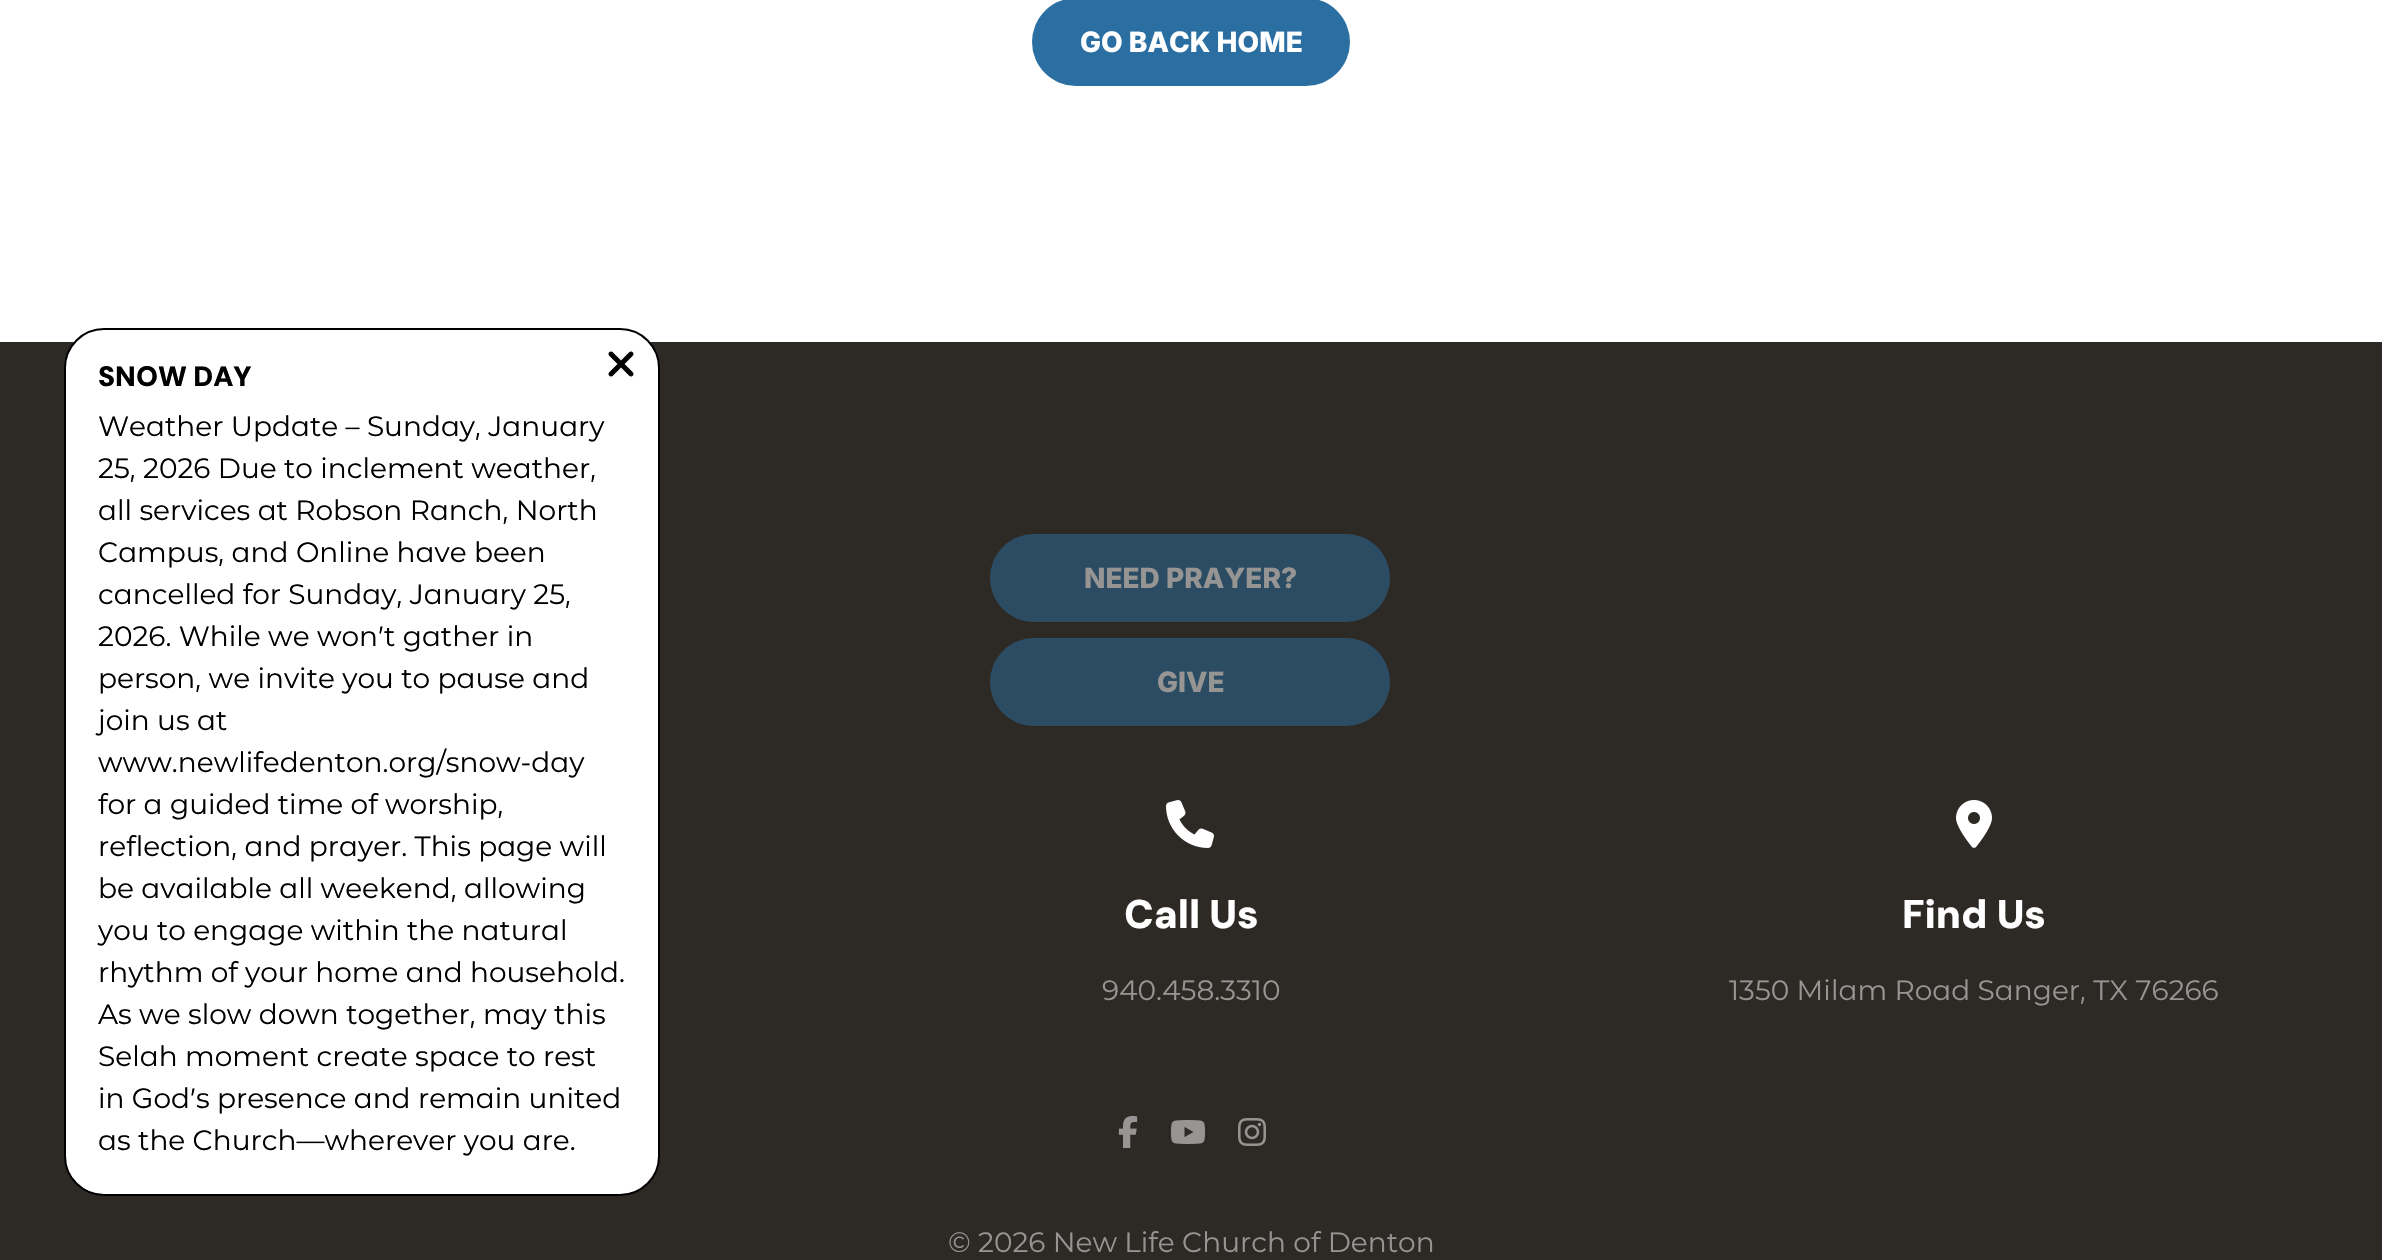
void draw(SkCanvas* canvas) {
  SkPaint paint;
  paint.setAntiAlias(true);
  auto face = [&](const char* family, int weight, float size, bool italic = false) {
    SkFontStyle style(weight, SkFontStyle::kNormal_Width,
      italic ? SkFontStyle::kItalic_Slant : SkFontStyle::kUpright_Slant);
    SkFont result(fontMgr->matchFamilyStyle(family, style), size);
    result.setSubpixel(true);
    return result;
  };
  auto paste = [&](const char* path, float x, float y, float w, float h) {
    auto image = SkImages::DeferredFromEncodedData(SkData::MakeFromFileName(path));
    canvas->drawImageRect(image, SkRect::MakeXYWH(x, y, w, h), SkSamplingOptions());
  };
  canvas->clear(0xffffffff);
  paint.setColor(0xff2d2a26);
  canvas->drawRect(SkRect::MakeXYWH(0, 342, 2382, 918), paint);
  paint.setColor(0xffffffff);
  canvas->drawRoundRect(SkRect::MakeXYWH(65, 329, 594, 866), 39, 39, paint);
  paint.setStroke(true);
  paint.setStrokeWidth(2);
  paint.setColor(0xff000000);
  canvas->drawRoundRect(SkRect::MakeXYWH(65, 329, 594, 866), 39, 39, paint);
  paste("img/1.png", 608, 351, 26, 26);
  paint.setStroke(false);
  paint.setColor(0xff2a6ea2);
  canvas->drawRoundRect(SkRect::MakeXYWH(1032, -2, 318, 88), 44, 44, paint);
  paint.setColor(0xff2c4c64);
  canvas->drawRoundRect(SkRect::MakeXYWH(990, 534, 400, 88), 44, 44, paint);
  canvas->drawRoundRect(SkRect::MakeXYWH(990, 638, 400, 88), 44, 44, paint);
  paste("img/2.png", 1166, 800, 48, 48);
  paste("img/3.png", 1956, 800, 36, 48);
  paste("img/4.png", 1118, 1116, 20, 32);
  paste("img/5.png", 1170, 1120, 36, 24);
  paste("img/6.png", 1238, 1118, 28, 28);
  auto f0 = face("DM Sans", 900, 28);
  paint.setColor(0xff000000);
  canvas->drawString("SNOW DAY", 98, 386, f0, paint);
  auto f1 = face("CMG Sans", 400, 28);
  {
    const struct { const char* s; float x, y; } items[] = {
      {"Weather Update – Sunday, January", 98, 436},
      {"25, 2026 Due to inclement weather,", 98, 478},
      {"all services at Robson Ranch, North", 98, 520},
      {"Campus, and Online have been", 98, 562},
      {"cancelled for Sunday, January 25,", 98, 604},
      {"2026. While we won’t gather in", 98, 646},
      {"person, we invite you to pause and", 98, 688},
      {"join us at", 98, 730},
      {"www.newlifedenton.org/snow-day", 98, 772},
      {"for a guided time of worship,", 98, 814},
      {"reflection, and prayer. This page will", 98, 856},
      {"be available all weekend, allowing", 98, 898},
      {"you to engage within the natural", 98, 940},
      {"rhythm of your home and household.", 98, 982},
      {"As we slow down together, may this", 98, 1024},
      {"Selah moment create space to rest", 98, 1066},
      {"in God’s presence and remain united", 98, 1108},
      {"as the Church—wherever you are.", 98, 1150},
    };
    for (auto [s, x, y] : items) {
      canvas->drawString(s, x, y, f1, paint);
    }
  }
  auto f2 = face("Inter", 800, 28);
  paint.setColor(0xffffffff);
  canvas->drawString("GO BACK HOME", 1080, 52, f2, paint);
  paint.setColor(0xff969593);
  canvas->drawString("NEED PRAYER?", 1084, 588, f2, paint);
  canvas->drawString("GIVE", 1157, 692, f2, paint);
  auto f3 = face("DM Sans", 900, 40);
  paint.setColor(0xffffffff);
  canvas->drawString("Call Us", 1124, 928, f3, paint);
  paint.setColor(0xff969593);
  canvas->drawString("940.458.3310", 1102, 1000, f1, paint);
  paint.setColor(0xffffffff);
  canvas->drawString("Find Us", 1902, 928, f3, paint);
  paint.setColor(0xff969593);
  canvas->drawString("1350 Milam Road Sanger, TX 76266", 1729, 1000, f1, paint);
  canvas->drawString("© 2026 New Life Church of Denton", 948, 1252, f1, paint);
}
